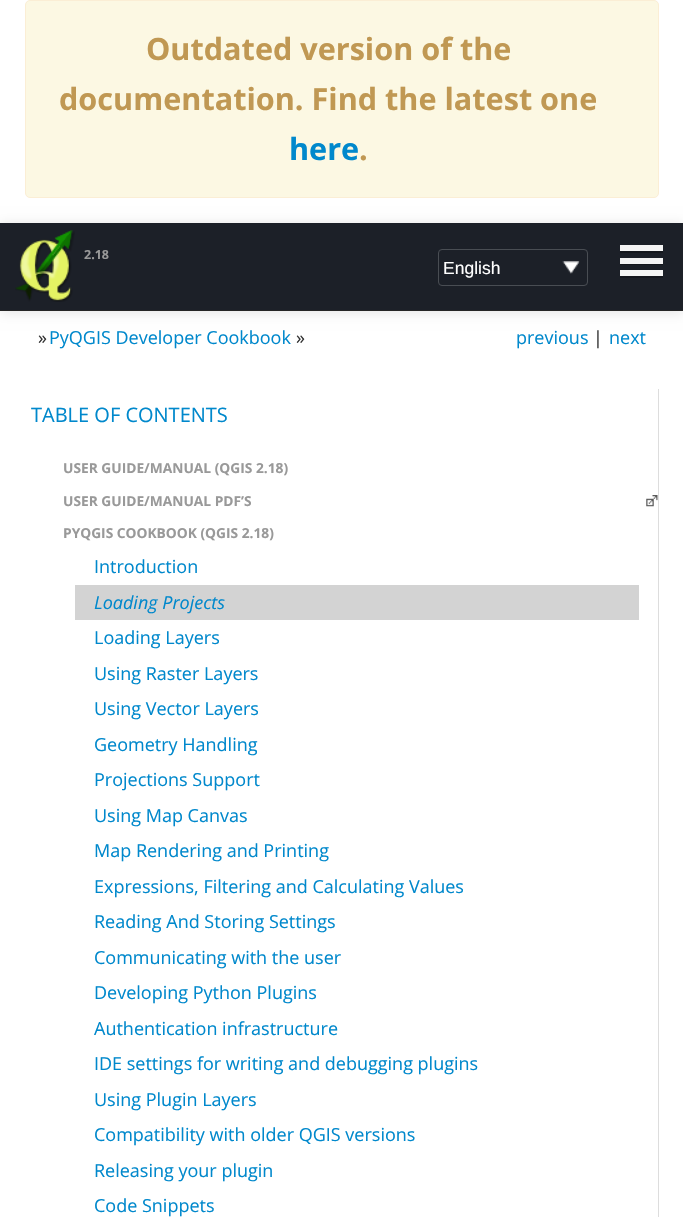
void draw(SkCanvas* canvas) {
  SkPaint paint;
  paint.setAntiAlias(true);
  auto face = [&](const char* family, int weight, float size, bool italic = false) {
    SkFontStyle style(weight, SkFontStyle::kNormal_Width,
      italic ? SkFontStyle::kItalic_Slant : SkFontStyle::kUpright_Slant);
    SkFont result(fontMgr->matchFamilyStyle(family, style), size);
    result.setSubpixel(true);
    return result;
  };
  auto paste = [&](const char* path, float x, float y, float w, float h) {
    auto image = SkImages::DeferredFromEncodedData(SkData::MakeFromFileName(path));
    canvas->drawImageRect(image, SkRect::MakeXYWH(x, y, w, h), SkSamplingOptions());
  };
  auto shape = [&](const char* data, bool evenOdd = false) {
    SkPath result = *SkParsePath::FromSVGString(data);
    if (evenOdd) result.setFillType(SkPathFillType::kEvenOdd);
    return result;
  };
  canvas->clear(0xffffffff);
  paint.setColor(0xfffcf8e3);
  canvas->drawRoundRect(SkRect::MakeXYWH(25.5f, 0.5f, 633, 197), 4.5f, 4.5f, paint);
  paint.setStroke(true);
  paint.setStrokeWidth(1);
  paint.setColor(0xfffbeed5);
  canvas->drawRoundRect(SkRect::MakeXYWH(25.5f, 0.5f, 633, 197), 4.5f, 4.5f, paint);
  paint.setStroke(false);
  paint.setColor(0x1a000000);
  paint.setMaskFilter(SkMaskFilter::MakeBlur(kNormal_SkBlurStyle, 6));
  canvas->drawRect(SkRect::MakeXYWH(0, 224, 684, 89), paint);
  paint.setMaskFilter(nullptr);
  paint.setColor(0xff1c2028);
  canvas->drawRect(SkRect::MakeXYWH(0, 223, 683, 87), paint);
  paint.setColor(0xff252525);
  canvas->drawRect(SkRect::MakeXYWH(0, 310, 683, 1), paint);
  paste("img/1.png", 15, 230, 60, 72);
  paint.setColor(0xff15181e);
  canvas->drawPath(shape("M620 251V253H663V246H662V251Z"), paint);
  paint.setColor(0xfff5f5f5);
  canvas->drawRect(SkRect::MakeXYWH(620, 245, 43, 6), paint);
  paint.setColor(0xff15181e);
  canvas->drawPath(shape("M620 264V265H663V259H662V264Z"), paint);
  paint.setColor(0xfff5f5f5);
  canvas->drawRect(SkRect::MakeXYWH(620, 258, 43, 6), paint);
  paint.setColor(0xff15181e);
  canvas->drawPath(shape("M620 276V278H663V271H662V276Z"), paint);
  paint.setColor(0xfff5f5f5);
  canvas->drawRect(SkRect::MakeXYWH(620, 270, 43, 6), paint);
  paste("img/2.png", 562, 261, 18, 13);
  paint.setStroke(true);
  paint.setColor(0xff494d53);
  canvas->drawRoundRect(SkRect::MakeXYWH(438.5f, 249.5f, 149, 36), 3.5f, 3.5f, paint);
  paint.setStroke(false);
  paint.setColor(0xffdddddd);
  canvas->drawRect(SkRect::MakeXYWH(658, 389, 1, 828), paint);
  paste("img/3.png", 646, 495, 12, 12);
  paint.setColor(0xffd3d3d3);
  canvas->drawRect(SkRect::MakeXYWH(75, 585, 564, 35), paint);
  auto f0 = face("Open Sans", 700, 30.6f);
  paint.setColor(0xffc09853);
  canvas->drawString("Outdated version of the", 146, 60, f0, paint);
  canvas->drawString("documentation. Find the latest one", 59, 110, f0, paint);
  paint.setColor(0xff0088cc);
  canvas->drawString("here", 289, 160, f0, paint);
  paint.setColor(0xffc09853);
  canvas->drawString(".", 359, 160, f0, paint);
  auto f1 = face("Open Sans", 700, 12.5f);
  paint.setColor(0xff999999);
  canvas->drawString("2.18", 84, 259, f1, paint);
  auto f2 = face("Liberation Sans", 400, 17.5f);
  paint.setColor(0xffffffff);
  canvas->drawString("English", 443, 274, f2, paint);
  auto f3 = face("Open Sans", 400, 18);
  paint.setColor(0xff333333);
  canvas->drawString("»", 38, 344, f3, paint);
  paint.setColor(0xff0088cc);
  canvas->drawString("PyQGIS Developer Cookbook", 49, 344, f3, paint);
  paint.setColor(0xff333333);
  canvas->drawString("»", 296, 344, f3, paint);
  paint.setColor(0xff0088cc);
  canvas->drawString("previous", 516, 344, f3, paint);
  paint.setColor(0xff333333);
  canvas->drawString("|", 593, 344, f3, paint);
  paint.setColor(0xff0088cc);
  canvas->drawString("next", 609, 344, f3, paint);
  auto f4 = face("Open Sans", 400, 20);
  canvas->drawString("TABLE OF CONTENTS", 31, 422, f4, paint);
  auto f5 = face("Open Sans", 700, 13.75f);
  paint.setColor(0xff999999);
  {
    const struct { const char* s; float x, y; } items[] = {
      {"USER GUIDE/MANUAL (QGIS 2.18)", 63, 473},
      {"USER GUIDE/MANUAL PDF’S", 63, 506},
      {"PYQGIS COOKBOOK (QGIS 2.18)", 63, 538},
    };
    for (auto [s, x, y] : items) {
      canvas->drawString(s, x, y, f5, paint);
    }
  }
  paint.setColor(0xff0088cc);
  canvas->drawString("Introduction", 94, 573, f3, paint);
  auto f6 = face("Open Sans", 400, 18, true);
  canvas->drawString("Loading Projects", 94, 609, f6, paint);
  {
    const struct { const char* s; float x, y; } items[] = {
      {"Loading Layers", 94, 644},
      {"Using Raster Layers", 94, 680},
      {"Using Vector Layers", 94, 715},
      {"Geometry Handling", 94, 751},
      {"Projections Support", 94, 786},
      {"Using Map Canvas", 94, 822},
      {"Map Rendering and Printing", 94, 857},
      {"Expressions, Filtering and Calculating Values", 94, 893},
      {"Reading And Storing Settings", 94, 928},
      {"Communicating with the user", 94, 964},
      {"Developing Python Plugins", 94, 999},
      {"Authentication infrastructure", 94, 1035},
      {"IDE settings for writing and debugging plugins", 94, 1070},
      {"Using Plugin Layers", 94, 1106},
      {"Compatibility with older QGIS versions", 94, 1141},
      {"Releasing your plugin", 94, 1177},
      {"Code Snippets", 94, 1212},
    };
    for (auto [s, x, y] : items) {
      canvas->drawString(s, x, y, f3, paint);
    }
  }
}
